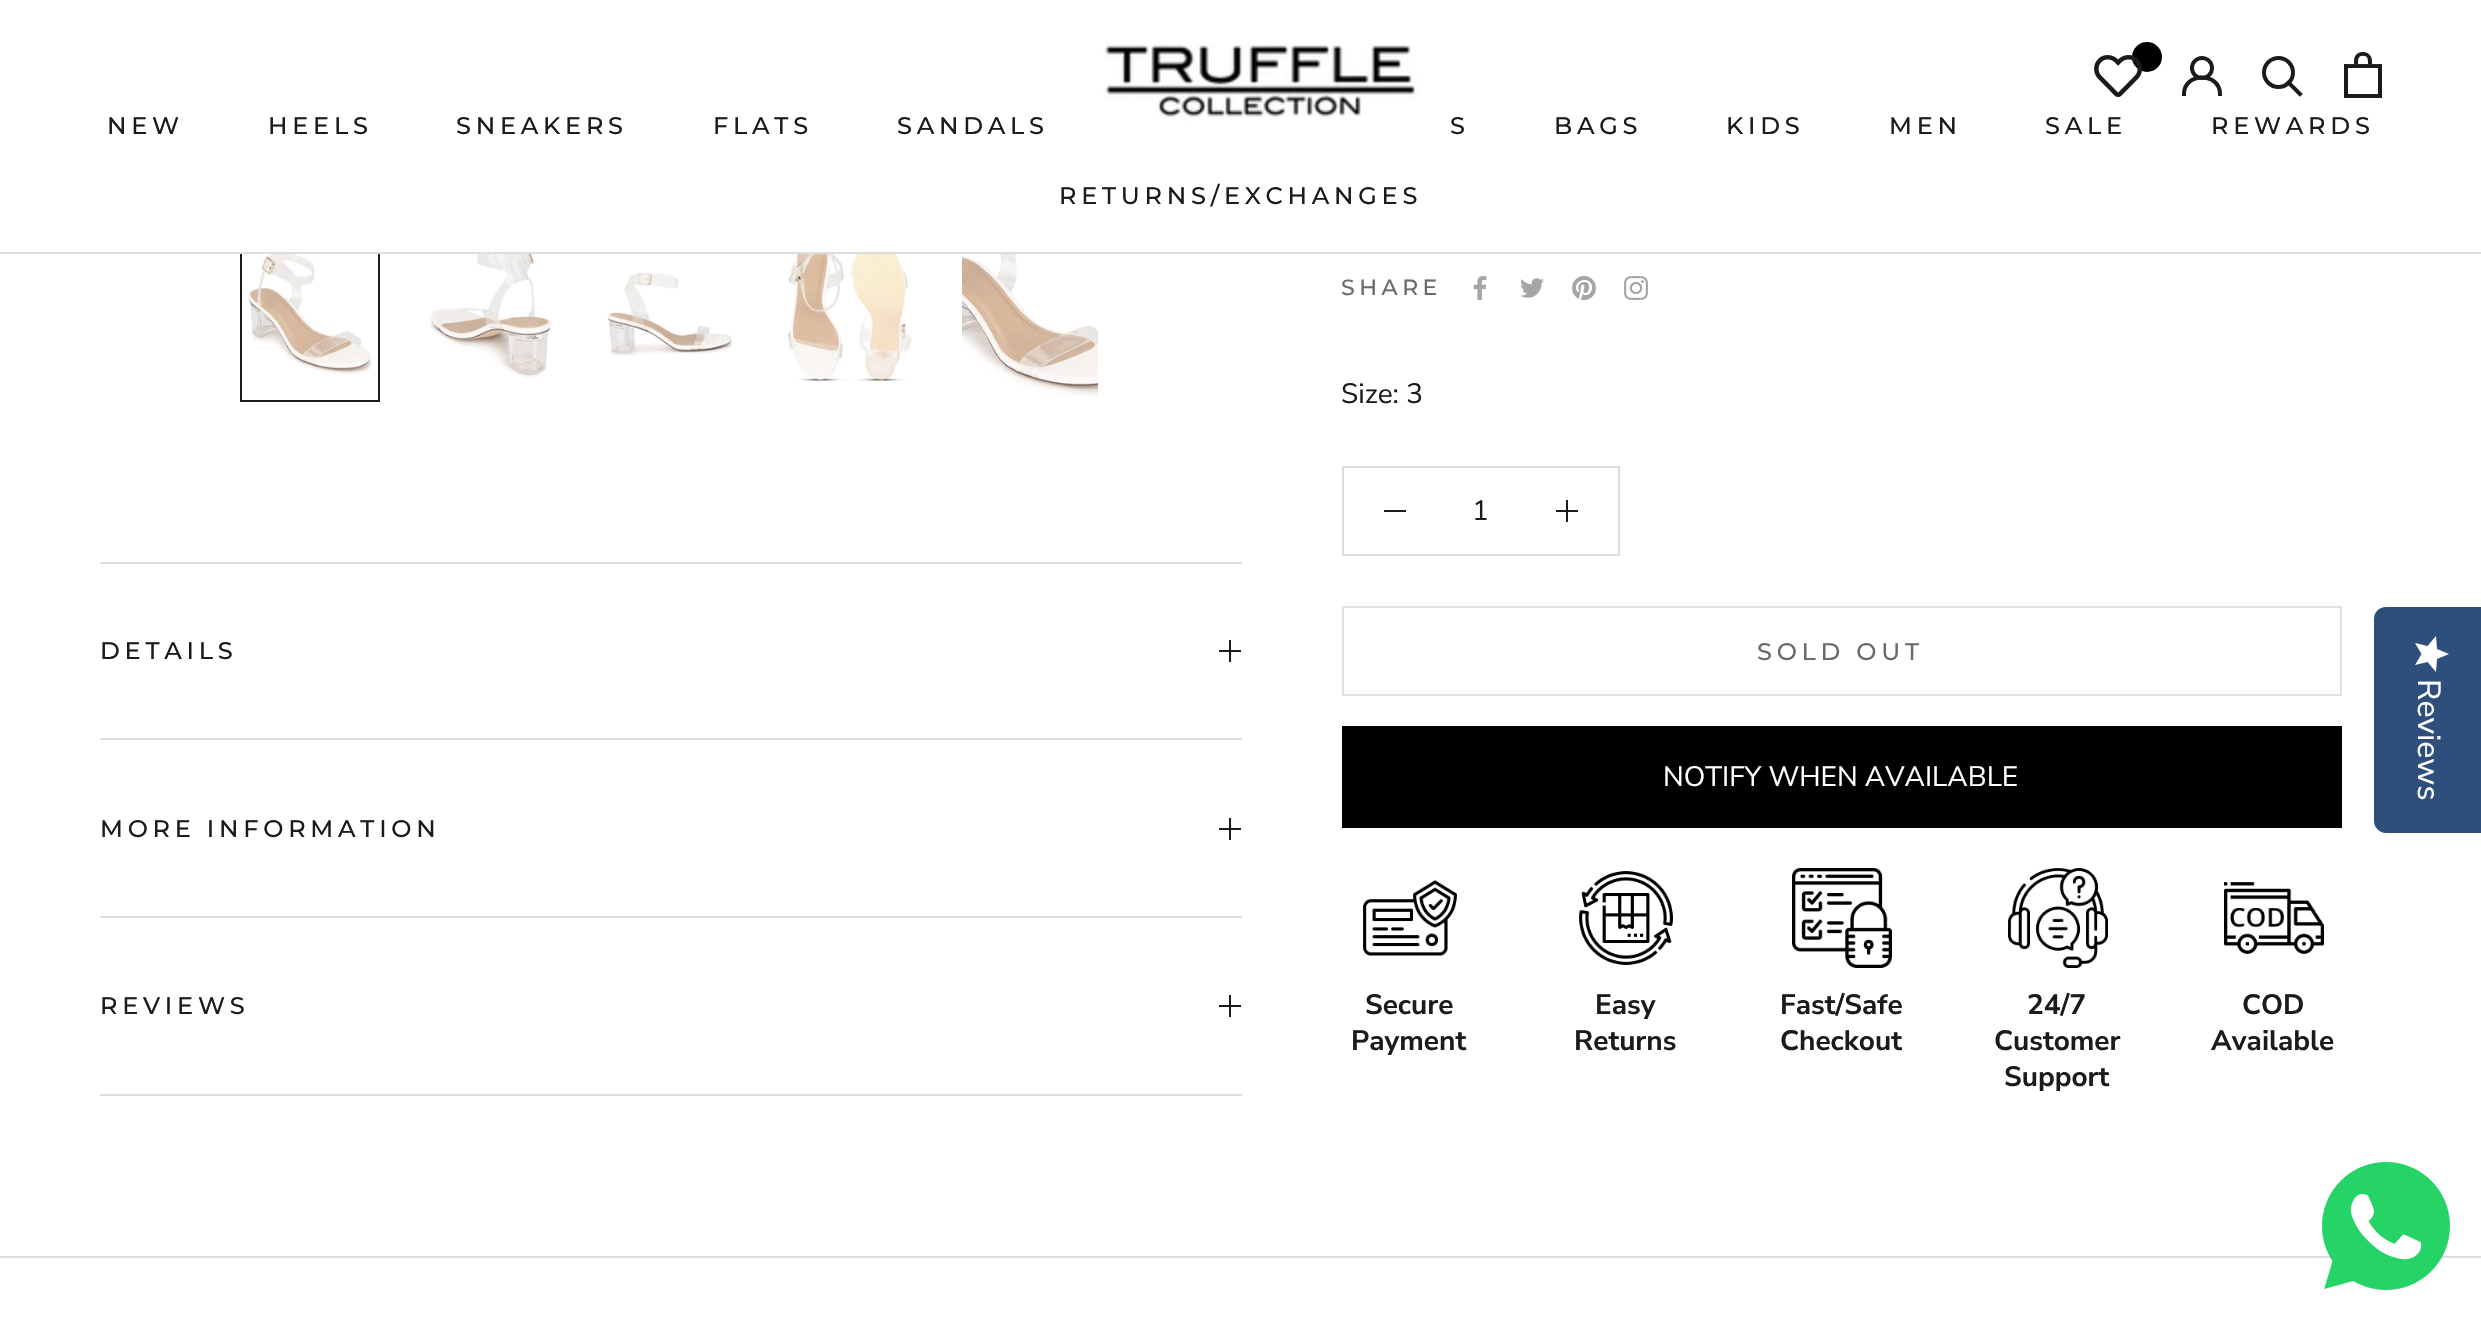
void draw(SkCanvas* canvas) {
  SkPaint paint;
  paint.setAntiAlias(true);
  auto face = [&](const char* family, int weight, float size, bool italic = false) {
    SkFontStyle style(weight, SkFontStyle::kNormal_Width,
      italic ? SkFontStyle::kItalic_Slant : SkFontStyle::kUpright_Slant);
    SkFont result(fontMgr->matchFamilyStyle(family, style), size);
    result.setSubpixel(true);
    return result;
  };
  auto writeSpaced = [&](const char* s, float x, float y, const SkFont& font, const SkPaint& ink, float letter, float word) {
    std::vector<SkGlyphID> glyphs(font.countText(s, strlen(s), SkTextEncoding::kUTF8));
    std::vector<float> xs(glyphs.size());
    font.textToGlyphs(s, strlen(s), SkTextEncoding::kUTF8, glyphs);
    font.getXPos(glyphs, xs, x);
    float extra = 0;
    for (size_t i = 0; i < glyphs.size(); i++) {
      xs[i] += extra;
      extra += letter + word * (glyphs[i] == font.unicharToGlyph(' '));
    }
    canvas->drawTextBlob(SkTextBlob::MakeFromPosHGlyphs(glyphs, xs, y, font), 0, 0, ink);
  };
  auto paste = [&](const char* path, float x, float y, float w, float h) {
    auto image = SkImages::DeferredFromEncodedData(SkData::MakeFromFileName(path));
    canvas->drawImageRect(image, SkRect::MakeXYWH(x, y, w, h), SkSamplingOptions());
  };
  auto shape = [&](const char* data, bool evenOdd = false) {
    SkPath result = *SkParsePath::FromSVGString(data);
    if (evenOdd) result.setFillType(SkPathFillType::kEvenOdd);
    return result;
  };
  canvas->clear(0xffffffff);
  paint.setStroke(true);
  paint.setStrokeWidth(2);
  paint.setColor(0xff1c1b1b);
  canvas->drawRect(SkRect::MakeXYWH(241, 217, 138, 184), paint);
  paint.setStroke(false);
  paint.setColor(0xffffffff);
  canvas->drawRect(SkRect::MakeXYWH(240, 216, 140, 36), paint);
  paint.setColor(0xffdddddd);
  canvas->drawRect(SkRect::MakeXYWH(0, 252, 2481, 2), paint);
  paste("img/1.png", 1103, 45, 333, 81);
  paint.setColor(0xff000000);
  canvas->drawCircle(2147, 57, 15, paint);
  paste("img/2.png", 2094, 55, 48, 42);
  paint.setStroke(true);
  paint.setStrokeWidth(4);
  paint.setStrokeCap(SkPaint::kSquare_Cap);
  paint.setColor(0xff1c1b1b);
  canvas->drawPath(shape("M2184 94C2184 72 2220 72 2220 94"), paint);
  paint.setStrokeCap(SkPaint::kButt_Cap);
  canvas->drawCircle(2202, 68, 10, paint);
  paint.setStrokeCap(SkPaint::kSquare_Cap);
  canvas->drawPath(shape("M2300 94L2288.5 82.5"), paint);
  paint.setStrokeCap(SkPaint::kButt_Cap);
  canvas->drawCircle(2278.5f, 72.5f, 14.5f, paint);
  paste("img/3.png", 2344, 52, 38, 46);
  paste("img/4.png", 247, 254, 126, 121);
  paste("img/5.png", 429, 254, 123, 125);
  paste("img/6.png", 607, 272, 126, 84);
  paste("img/7.png", 788, 254, 124, 128);
  paste("img/8.png", 962, 254, 136, 142);
  paste("img/9.png", 1473, 276, 14, 24);
  paste("img/10.png", 1520, 278, 24, 20);
  paste("img/11.png", 1572, 276, 24, 24);
  paste("img/12.png", 1624, 276, 24, 24);
  paint.setStrokeWidth(2);
  paint.setColor(0xffdddddd);
  canvas->drawRect(SkRect::MakeXYWH(1343, 467, 276, 88), paint);
  paint.setStroke(false);
  {
    const struct { float x, y, w, h; SkColor color; } items[] = {
      {1384, 510, 22, 2, 0xff1c1b1b},
      {1566, 500, 2, 22, 0xff1c1b1b},
      {1556, 510, 22, 2, 0xff1c1b1b},
    };
    for (auto [x, y, w, h, color] : items) {
      paint.setColor(color);
      canvas->drawRect(SkRect::MakeXYWH(x, y, w, h), paint);
    }
  }
  paint.setStroke(true);
  paint.setColor(0xffe1e1e1);
  canvas->drawRect(SkRect::MakeXYWH(1343, 607, 998, 88), paint);
  paint.setStroke(false);
  paint.setColor(0xff000000);
  canvas->drawRect(SkRect::MakeXYWH(1342, 726, 1000, 102), paint);
  paste("img/13.png", 1363, 880, 94, 76);
  paste("img/14.png", 1579, 871, 94, 94);
  paste("img/15.png", 1792, 868, 100, 100);
  paste("img/16.png", 2008, 868, 100, 100);
  paste("img/17.png", 2224, 882, 100, 72);
  {
    const struct { float x, y, w, h; SkColor color; } items[] = {
      {100, 562, 1142, 2, 0xffdddddd},
      {100, 738, 1142, 2, 0xffdddddd},
      {1229, 640, 2, 22, 0xff1c1b1b},
      {1219, 650, 22, 2, 0xff1c1b1b},
      {100, 916, 1142, 2, 0xffdddddd},
      {1229, 818, 2, 22, 0xff1c1b1b},
      {1219, 828, 22, 2, 0xff1c1b1b},
      {100, 1094, 1142, 2, 0xffdddddd},
      {1229, 995, 2, 22, 0xff1c1b1b},
      {1219, 1005, 22, 2, 0xff1c1b1b},
      {0, 1256, 2481, 2, 0xffdddddd},
    };
    for (auto [x, y, w, h, color] : items) {
      paint.setColor(color);
      canvas->drawRect(SkRect::MakeXYWH(x, y, w, h), paint);
    }
  }
  paint.setColor(0xff2e4f7c);
  canvas->drawPath(shape("M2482 607V833H2386C2379 833 2374 827 2374 821V619C2374 612 2379 607 2386 607Z"), paint);
  {
    const SkColor colors[] = {0xffffffff, 0xffeaeaea};
    const float stops[] = {1, 1};
    const SkPoint ends[] = {{2449, 636}, {2449, 672}};
    paint.setShader(SkGradientShader::MakeLinear(ends, colors, stops, 2, SkTileMode::kClamp));
    paint.setAlpha(255);
  }
  canvas->drawPath(shape("M2421.5 654L2415 665L2427.5 662L2436 672L2437 659L2449 654L2437 649L2436 636L2427.5 646L2415 643Z"), paint);
  paste("img/18.png", 2322, 1162, 128, 128);
  auto f0 = face("Montserrat", 500, 24);
  paint.setShader(nullptr);
  paint.setColor(0xff1c1b1b);
  {
    const struct { const char* s; float x, y; } items[] = {
      {"NEW", 107, 134},
      {"HEELS", 268, 134},
      {"SNEAKERS", 456, 134},
      {"FLATS", 713, 134},
      {"SANDALS", 897, 134},
      {"S", 1450, 134},
      {"BAGS", 1554, 134},
      {"KIDS", 1726, 134},
      {"MEN", 1889, 134},
      {"SALE", 2045, 134},
      {"REWARDS", 2211, 134},
      {"RETURNS/EXCHANGES", 1059, 204},
    };
    for (auto [s, x, y] : items) {
      writeSpaced(s, x, y, f0, paint, 4.75f, 0);
    }
  }
  auto f1 = face("Montserrat", 500, 22);
  paint.setColor(0xff6a6a6a);
  writeSpaced("SHARE", 1341, 295, f1, paint, 4.5f, 0);
  auto f2 = face("Nunito Sans", 400, 28);
  paint.setColor(0xff1c1b1b);
  canvas->drawString("Size: 3", 1341, 403, f2, paint);
  canvas->drawString("1", 1472, 520, f2, paint);
  paint.setColor(0xff6a6a6a);
  writeSpaced("SOLD OUT", 1757, 660, f0, paint, 4.75f, 0);
  paint.setColor(0xffffffff);
  canvas->drawString("NOTIFY WHEN AVAILABLE", 1663, 786, f2, paint);
  auto f3 = face("Nunito Sans", 700, 28);
  paint.setColor(0xff1c1b1b);
  {
    const struct { const char* s; float x, y; } items[] = {
      {"Secure", 1365, 1014},
      {"Payment", 1351, 1050},
      {"Easy", 1595, 1014},
      {"Returns", 1574, 1050},
      {"Fast/Safe", 1780, 1014},
      {"Checkout", 1780, 1050},
      {"24/7", 2027, 1014},
      {"Customer", 1994, 1050},
      {"Support", 2004, 1086},
      {"COD", 2242, 1014},
      {"Available", 2211, 1050},
    };
    for (auto [s, x, y] : items) {
      canvas->drawString(s, x, y, f3, paint);
    }
  }
  {
    const struct { const char* s; float x, y; } items[] = {
      {"DETAILS", 100, 659},
      {"MORE INFORMATION", 100, 837},
      {"REVIEWS", 100, 1014},
    };
    for (auto [s, x, y] : items) {
      writeSpaced(s, x, y, f0, paint, 4.75f, 0);
    }
  }
  auto f4 = face("Nunito Sans", 400, 32);
  paint.setColor(0xffffffff);
  canvas->save();
  canvas->rotate(90, 2418, 679);
  canvas->drawString("Reviews", 2418, 679, f4, paint);
  canvas->restore();
}
